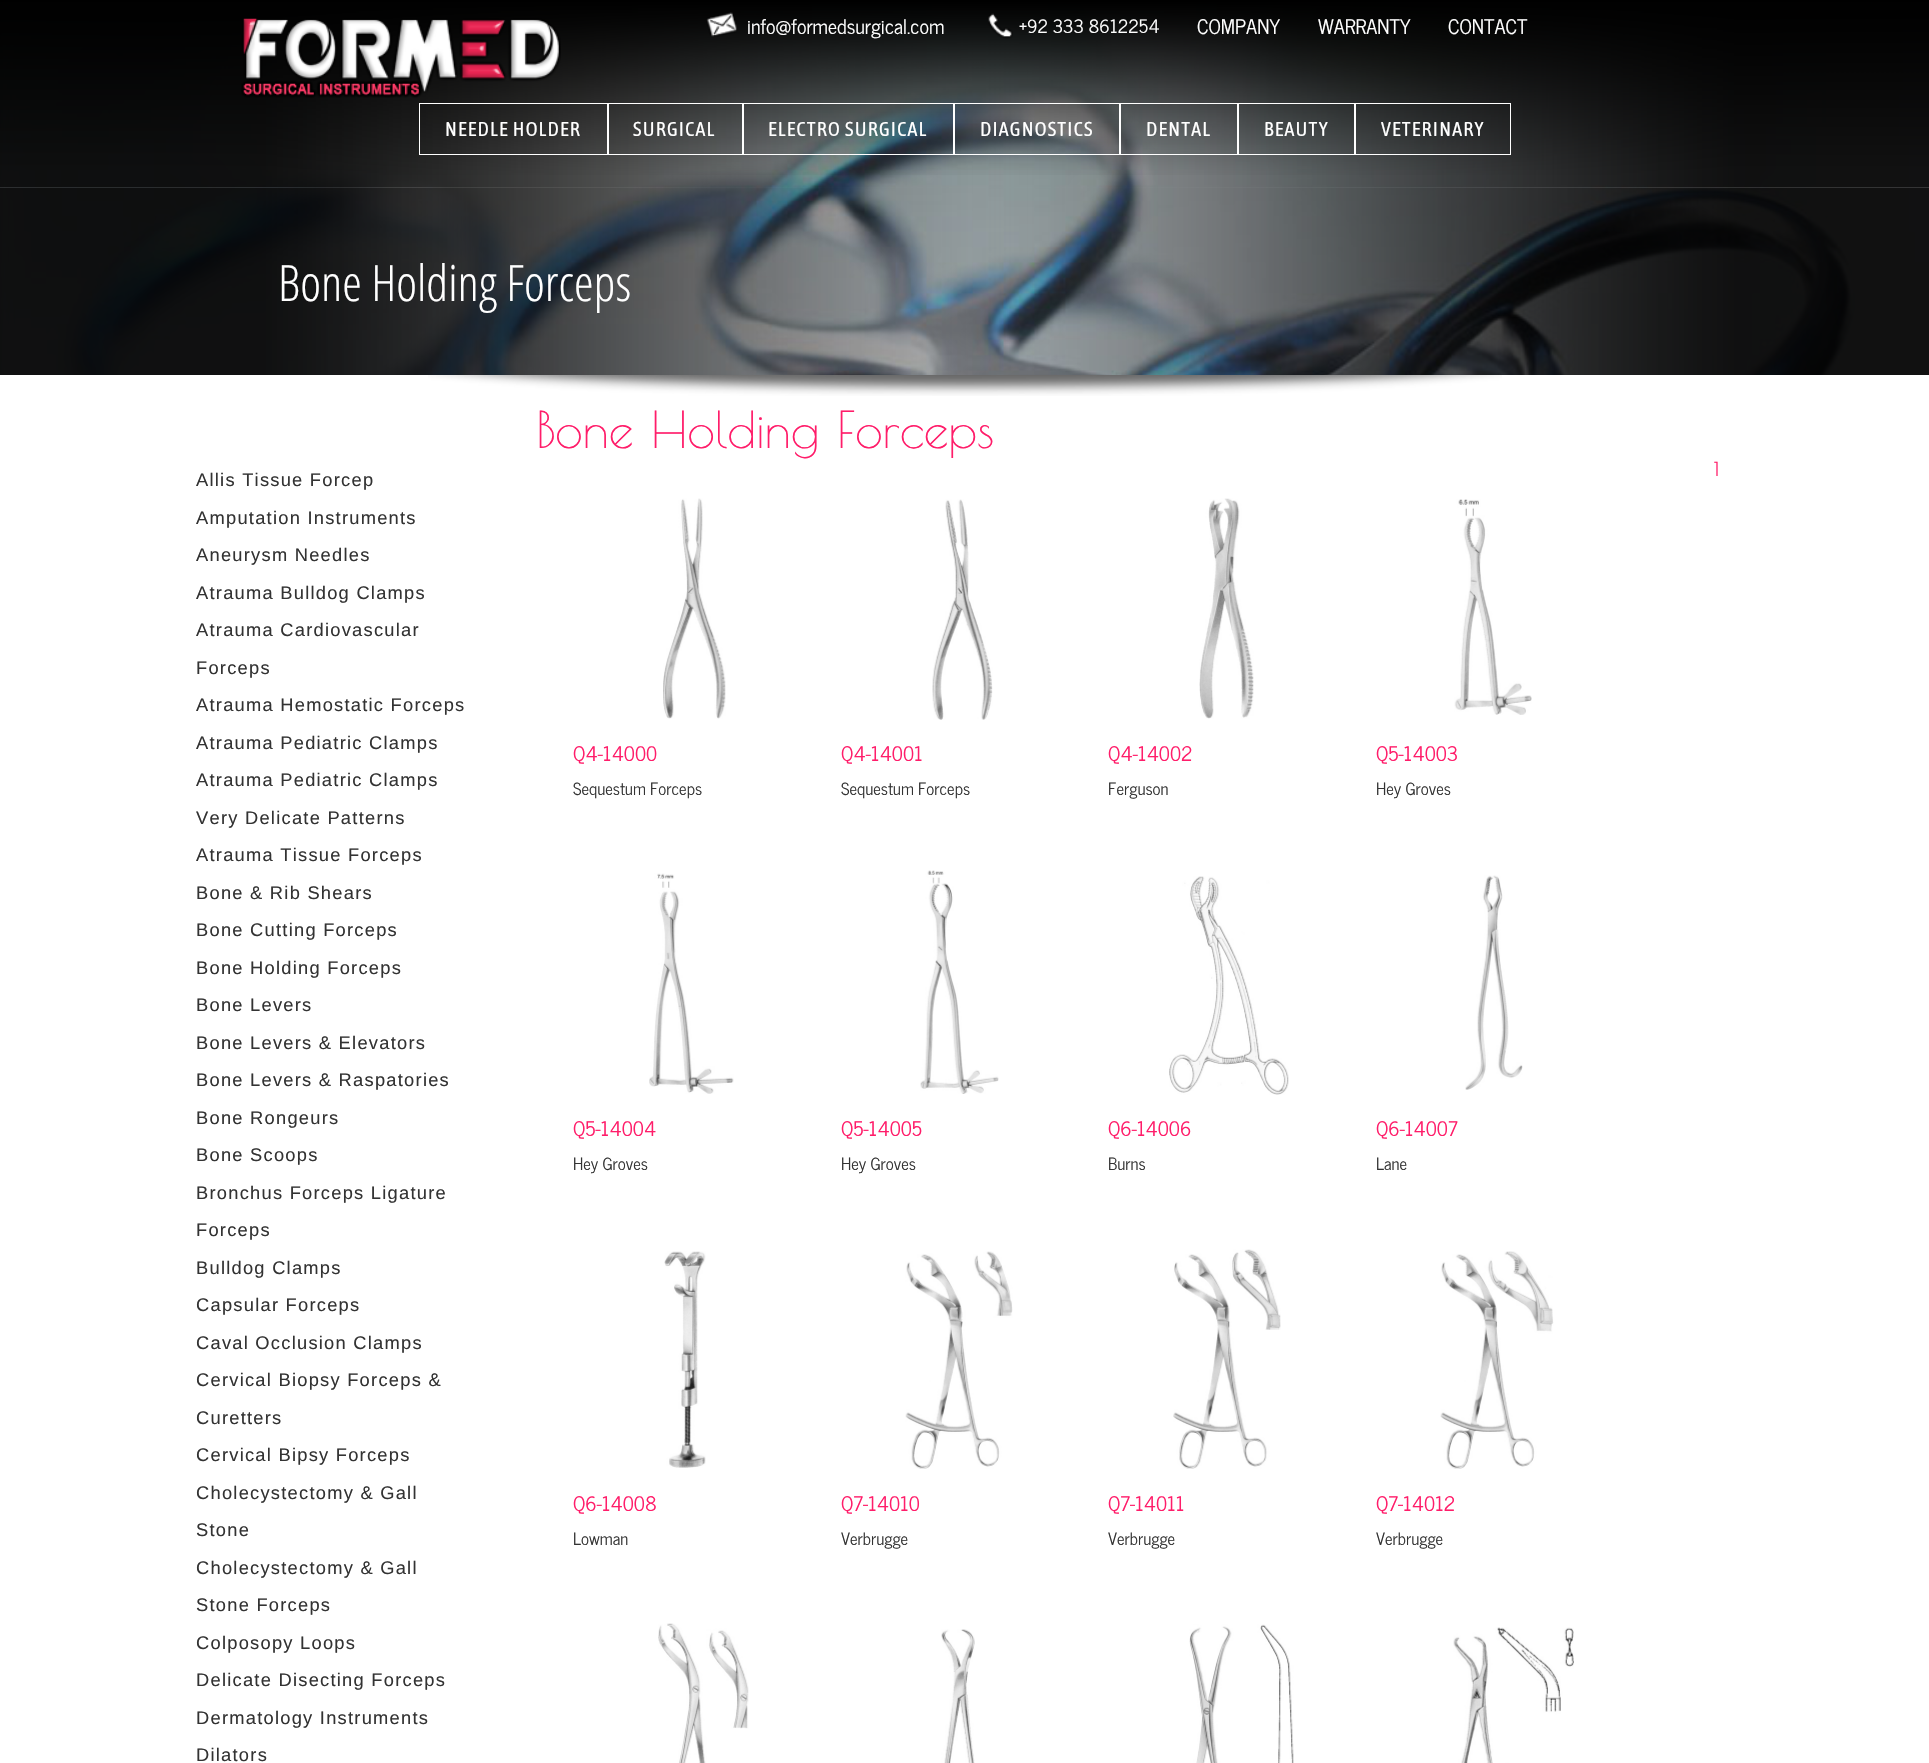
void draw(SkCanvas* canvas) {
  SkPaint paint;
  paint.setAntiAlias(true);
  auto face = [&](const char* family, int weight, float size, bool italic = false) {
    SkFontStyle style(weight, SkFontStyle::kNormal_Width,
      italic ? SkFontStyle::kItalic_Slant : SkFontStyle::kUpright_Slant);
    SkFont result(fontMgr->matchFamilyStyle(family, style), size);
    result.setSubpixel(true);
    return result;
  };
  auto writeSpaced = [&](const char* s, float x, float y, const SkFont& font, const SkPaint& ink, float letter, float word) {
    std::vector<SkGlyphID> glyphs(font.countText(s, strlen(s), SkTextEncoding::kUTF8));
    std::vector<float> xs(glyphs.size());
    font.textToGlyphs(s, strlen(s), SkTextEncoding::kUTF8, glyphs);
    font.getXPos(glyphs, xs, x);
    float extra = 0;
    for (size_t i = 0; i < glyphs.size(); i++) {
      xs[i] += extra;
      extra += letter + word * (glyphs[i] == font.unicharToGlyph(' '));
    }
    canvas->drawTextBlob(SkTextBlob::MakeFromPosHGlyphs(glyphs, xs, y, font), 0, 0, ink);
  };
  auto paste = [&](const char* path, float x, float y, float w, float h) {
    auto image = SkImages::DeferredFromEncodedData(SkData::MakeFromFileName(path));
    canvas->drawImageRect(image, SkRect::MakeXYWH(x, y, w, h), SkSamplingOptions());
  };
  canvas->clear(0xffffffff);
  paste("img/1.png", 0, 4, 1929, 371);
  paste("img/2.png", 0, 4, 1929, 184);
  paste("img/3.png", 0, 0, 1929, 175);
  paste("img/4.png", 241, 18, 320, 80);
  paste("img/5.png", 706, 12, 31, 25);
  paste("img/6.png", 988, 13, 25, 26);
  paint.setStroke(true);
  paint.setStrokeWidth(1);
  paint.setColor(0xffffffff);
  canvas->drawRect(SkRect::MakeXYWH(419.5f, 103.5f, 188, 51), paint);
  canvas->drawRect(SkRect::MakeXYWH(608.5f, 103.5f, 134, 51), paint);
  canvas->drawRect(SkRect::MakeXYWH(743.5f, 103.5f, 210, 51), paint);
  canvas->drawRect(SkRect::MakeXYWH(954.5f, 103.5f, 165, 51), paint);
  canvas->drawRect(SkRect::MakeXYWH(1120.5f, 103.5f, 117, 51), paint);
  canvas->drawRect(SkRect::MakeXYWH(1238.5f, 103.5f, 116, 51), paint);
  canvas->drawRect(SkRect::MakeXYWH(1355.5f, 103.5f, 155, 51), paint);
  paste("img/7.png", 0, 187, 1929, 188);
  paste("img/8.png", 428, 375, 1074, 21);
  paste("img/9.png", 663, 498, 63, 221);
  paste("img/10.png", 932, 499, 61, 221);
  paste("img/11.png", 1199, 498, 55, 221);
  paste("img/12.png", 1454, 499, 78, 216);
  paste("img/13.png", 649, 873, 85, 221);
  paste("img/14.png", 920, 870, 79, 224);
  paste("img/15.png", 1169, 876, 120, 219);
  paste("img/16.png", 1465, 875, 58, 215);
  paste("img/17.png", 664, 1251, 42, 217);
  paste("img/18.png", 905, 1251, 108, 218);
  paste("img/19.png", 1173, 1249, 108, 220);
  paste("img/20.png", 1440, 1251, 114, 218);
  paste("img/21.png", 658, 1623, 91, 140);
  paste("img/22.png", 941, 1629, 34, 134);
  paste("img/23.png", 1189, 1624, 105, 139);
  paste("img/24.png", 1453, 1627, 121, 136);
  auto f0 = face("News Cycle", 400, 20);
  paint.setStroke(false);
  canvas->drawString("info@formedsurgical.com", 747, 34, f0, paint);
  auto f1 = face("News Cycle", 400, 18.3f);
  canvas->drawString("+92 333 8612254", 1019, 33, f1, paint);
  {
    const struct { const char* s; float x, y; } items[] = {
      {"COMPANY", 1197, 34},
      {"WARRANTY", 1318, 34},
      {"CONTACT", 1448, 34},
    };
    for (auto [s, x, y] : items) {
      canvas->drawString(s, x, y, f0, paint);
    }
  }
  auto f2 = face("Asap Condensed", 400, 20);
  {
    const struct { const char* s; float x, y; } items[] = {
      {"NEEDLE HOLDER", 445, 136},
      {"SURGICAL", 633, 136},
      {"ELECTRO SURGICAL", 768, 136},
      {"DIAGNOSTICS", 980, 136},
      {"DENTAL", 1146, 136},
      {"BEAUTY", 1264, 136},
      {"VETERINARY", 1381, 136},
    };
    for (auto [s, x, y] : items) {
      writeSpaced(s, x, y, f2, paint, 1.25f, 0);
    }
  }
  auto f3 = face("Open Sans Condensed", 300, 50);
  canvas->drawString("Bone Holding Forceps", 278, 301, f3, paint);
  auto f4 = face("Poiret One", 400, 50);
  paint.setColor(0xffff1d6a);
  canvas->drawString("Bone Holding Forceps", 536, 448, f4, paint);
  auto f5 = face("Liberation Sans", 400, 18.3f);
  paint.setColor(0xff333333);
  {
    const struct { const char* s; float x, y; } items[] = {
      {"Allis Tissue Forcep", 196, 486},
      {"Amputation Instruments", 196, 524},
      {"Aneurysm Needles", 196, 561},
      {"Atrauma Bulldog Clamps", 196, 599},
      {"Atrauma Cardiovascular", 196, 636},
      {"Forceps", 196, 674},
      {"Atrauma Hemostatic Forceps", 196, 711},
      {"Atrauma Pediatric Clamps", 196, 749},
      {"Atrauma Pediatric Clamps", 196, 786},
      {"Very Delicate Patterns", 196, 824},
      {"Atrauma Tissue Forceps", 196, 861},
      {"Bone & Rib Shears", 196, 899},
      {"Bone Cutting Forceps", 196, 936},
      {"Bone Holding Forceps", 196, 974},
      {"Bone Levers", 196, 1011},
      {"Bone Levers & Elevators", 196, 1049},
      {"Bone Levers & Raspatories", 196, 1086},
      {"Bone Rongeurs", 196, 1124},
      {"Bone Scoops", 196, 1161},
      {"Bronchus Forceps Ligature", 196, 1199},
      {"Forceps", 196, 1236},
      {"Bulldog Clamps", 196, 1274},
      {"Capsular Forceps", 196, 1311},
      {"Caval Occlusion Clamps", 196, 1349},
      {"Cervical Biopsy Forceps &", 196, 1386},
      {"Curetters", 196, 1424},
      {"Cervical Bipsy Forceps", 196, 1461},
      {"Cholecystectomy & Gall", 196, 1499},
      {"Stone", 196, 1536},
      {"Cholecystectomy & Gall", 196, 1574},
      {"Stone Forceps", 196, 1611},
      {"Colposopy Loops", 196, 1649},
      {"Delicate Disecting Forceps", 196, 1686},
      {"Dermatology Instruments", 196, 1724},
      {"Dilators", 196, 1761},
    };
    for (auto [s, x, y] : items) {
      writeSpaced(s, x, y, f5, paint, 1.25f, 0);
    }
  }
  auto f6 = face("Poiret One", 700, 18.3f);
  paint.setColor(0xffff1d6a);
  canvas->drawString("1", 1714, 476, f6, paint);
  canvas->drawString("Q4-14000", 573, 761, f0, paint);
  auto f7 = face("News Cycle", 400, 16.75f);
  paint.setColor(0xff333333);
  canvas->drawString("Sequestum Forceps", 573, 795, f7, paint);
  paint.setColor(0xffff1d6a);
  canvas->drawString("Q4-14001", 841, 761, f0, paint);
  paint.setColor(0xff333333);
  canvas->drawString("Sequestum Forceps", 841, 795, f7, paint);
  paint.setColor(0xffff1d6a);
  canvas->drawString("Q4-14002", 1108, 761, f0, paint);
  paint.setColor(0xff333333);
  canvas->drawString("Ferguson", 1108, 795, f7, paint);
  paint.setColor(0xffff1d6a);
  canvas->drawString("Q5-14003", 1376, 761, f0, paint);
  paint.setColor(0xff333333);
  canvas->drawString("Hey Groves", 1376, 795, f7, paint);
  paint.setColor(0xffff1d6a);
  canvas->drawString("Q5-14004", 573, 1136, f0, paint);
  paint.setColor(0xff333333);
  canvas->drawString("Hey Groves", 573, 1170, f7, paint);
  paint.setColor(0xffff1d6a);
  canvas->drawString("Q5-14005", 841, 1136, f0, paint);
  paint.setColor(0xff333333);
  canvas->drawString("Hey Groves", 841, 1170, f7, paint);
  paint.setColor(0xffff1d6a);
  canvas->drawString("Q6-14006", 1108, 1136, f0, paint);
  paint.setColor(0xff333333);
  canvas->drawString("Burns", 1108, 1170, f7, paint);
  paint.setColor(0xffff1d6a);
  canvas->drawString("Q6-14007", 1376, 1136, f0, paint);
  paint.setColor(0xff333333);
  canvas->drawString("Lane", 1376, 1170, f7, paint);
  paint.setColor(0xffff1d6a);
  canvas->drawString("Q6-14008", 573, 1511, f0, paint);
  paint.setColor(0xff333333);
  canvas->drawString("Lowman", 573, 1545, f7, paint);
  paint.setColor(0xffff1d6a);
  canvas->drawString("Q7-14010", 841, 1511, f0, paint);
  paint.setColor(0xff333333);
  canvas->drawString("Verbrugge", 841, 1545, f7, paint);
  paint.setColor(0xffff1d6a);
  canvas->drawString("Q7-14011", 1108, 1511, f0, paint);
  paint.setColor(0xff333333);
  canvas->drawString("Verbrugge", 1108, 1545, f7, paint);
  paint.setColor(0xffff1d6a);
  canvas->drawString("Q7-14012", 1376, 1511, f0, paint);
  paint.setColor(0xff333333);
  canvas->drawString("Verbrugge", 1376, 1545, f7, paint);
}
